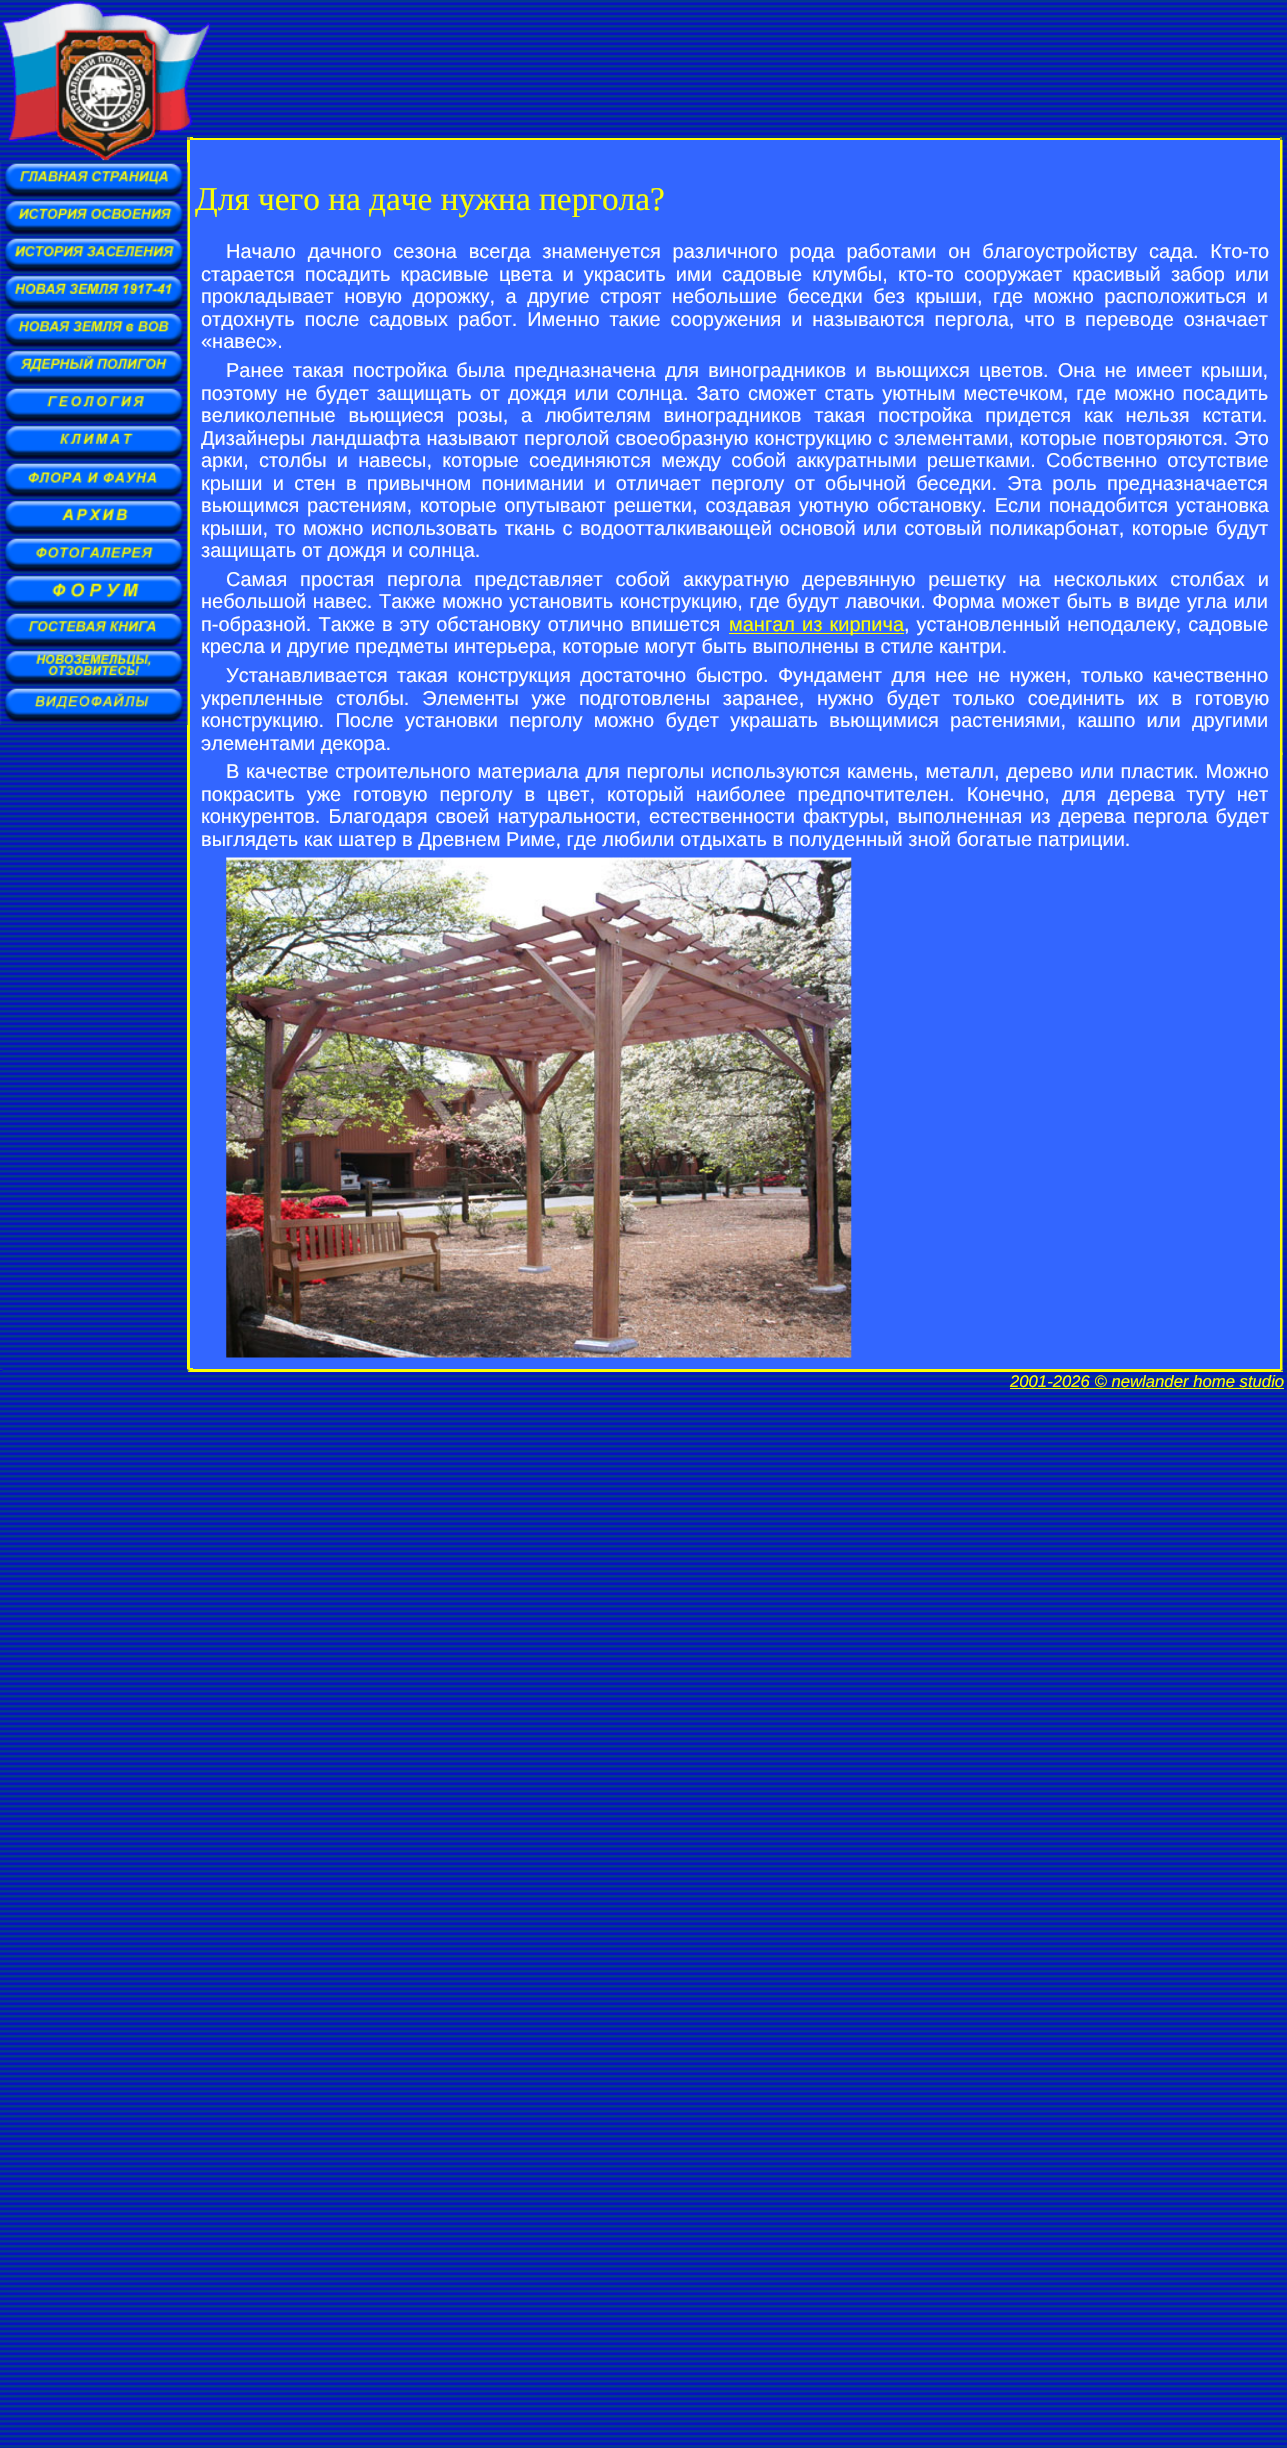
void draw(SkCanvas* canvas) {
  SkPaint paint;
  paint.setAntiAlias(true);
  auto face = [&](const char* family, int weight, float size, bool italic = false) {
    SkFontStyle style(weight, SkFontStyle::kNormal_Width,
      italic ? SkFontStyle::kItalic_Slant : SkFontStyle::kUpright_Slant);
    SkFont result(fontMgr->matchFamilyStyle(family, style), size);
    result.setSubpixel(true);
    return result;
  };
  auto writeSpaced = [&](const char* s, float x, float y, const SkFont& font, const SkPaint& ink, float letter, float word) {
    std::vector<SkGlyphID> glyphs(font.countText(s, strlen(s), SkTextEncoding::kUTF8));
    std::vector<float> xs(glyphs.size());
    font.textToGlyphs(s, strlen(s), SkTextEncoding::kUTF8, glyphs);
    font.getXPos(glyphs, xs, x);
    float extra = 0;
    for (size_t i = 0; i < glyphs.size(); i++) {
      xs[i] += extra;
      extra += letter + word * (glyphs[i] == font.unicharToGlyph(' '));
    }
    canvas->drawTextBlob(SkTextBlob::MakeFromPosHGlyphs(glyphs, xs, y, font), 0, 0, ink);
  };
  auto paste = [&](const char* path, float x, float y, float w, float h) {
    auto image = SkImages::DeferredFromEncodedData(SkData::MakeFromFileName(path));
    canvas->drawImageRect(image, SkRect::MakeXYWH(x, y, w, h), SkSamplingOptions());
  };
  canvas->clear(0xffffffff);
  paste("img/1.png", 0, 0, 1287, 2448);
  paint.setColor(0xff023b8b);
  canvas->drawRect(SkRect::MakeXYWH(0, 137, 188, 1), paint);
  paste("img/2.png", 2, 1, 209, 137);
  paste("img/3.png", 0, 137, 187, 3);
  {
    const struct { float x, y, w, h; SkColor color; } items[] = {
      {187, 137, 3, 3, 0xff9f995f},
      {190, 138, 1090, 2, 0xffffff00},
      {190, 137, 3, 3, 0xfffafd07},
      {1280, 137, 3, 3, 0xff7f8f57},
      {1282, 137, 3, 3, 0xff02388e},
    };
    for (auto [x, y, w, h, color] : items) {
      paint.setColor(color);
      canvas->drawRect(SkRect::MakeXYWH(x, y, w, h), paint);
    }
  }
  paste("img/4.png", 8, 140, 141, 21);
  paint.setColor(0xfffafd07);
  canvas->drawRect(SkRect::MakeXYWH(187, 140, 3, 1229), paint);
  paste("img/5.png", 0, 162, 188, 38);
  paste("img/6.png", 0, 200, 188, 38);
  paste("img/7.png", 0, 237, 188, 38);
  paste("img/8.png", 0, 275, 188, 38);
  paste("img/9.png", 0, 312, 188, 38);
  paste("img/10.png", 0, 350, 188, 38);
  paste("img/11.png", 0, 387, 188, 38);
  paste("img/12.png", 0, 425, 188, 38);
  paste("img/13.png", 0, 462, 188, 38);
  paste("img/14.png", 0, 500, 188, 38);
  paste("img/15.png", 0, 537, 188, 38);
  paste("img/16.png", 0, 575, 188, 38);
  paste("img/17.png", 0, 612, 188, 38);
  paste("img/18.png", 0, 650, 188, 38);
  paste("img/19.png", 0, 687, 188, 38);
  canvas->drawRect(SkRect::MakeXYWH(1280, 140, 3, 1229), paint);
  paste("img/22.png", 1282, 140, 1, 1229);
  paste("img/20.png", 1282, 752, 1, 3);
  paint.setColor(0xff3366ff);
  canvas->drawRect(SkRect::MakeXYWH(190, 140, 1090, 1229), paint);
  paint.setColor(0xfffafd07);
  canvas->drawRect(SkRect::MakeXYWH(729, 633, 175, 1), paint);
  paste("img/21.png", 226, 857, 626, 501);
  paste("img/23.png", 0, 1368, 3, 4);
  paint.setColor(0xffffff00);
  canvas->drawRect(SkRect::MakeXYWH(188, 1371, 3, 1), paint);
  paste("img/24.png", 187, 1368, 3, 4);
  canvas->drawRect(SkRect::MakeXYWH(190, 1369, 1093, 3), paint);
  paint.setColor(0xfffafd07);
  canvas->drawRect(SkRect::MakeXYWH(190, 1368, 3, 3), paint);
  paste("img/25.png", 1281, 1368, 2, 4);
  paste("img/26.png", 1282, 1368, 3, 4);
  canvas->drawRect(SkRect::MakeXYWH(1010, 1388, 274, 1), paint);
  auto f0 = face("Liberation Serif", 400, 33.3f);
  canvas->drawString("Для чего на даче нужна пергола?", 195, 210, f0, paint);
  auto f1 = face("Liberation Sans", 400, 20);
  paint.setColor(0xffffffff);
  writeSpaced("Начало дачного сезона всегда знаменуется различного рода работами он благоустройству сада. Кто-то", 226, 258, f1, paint, 0, 6.25f);
  writeSpaced("старается посадить красивые цвета и украсить ими садовые клумбы, кто-то сооружает красивый забор или", 201, 281, f1, paint, 0, 4.6f);
  writeSpaced("прокладывает новую дорожку, а другие строят небольшие беседки без крыши, где можно расположиться и", 201, 303, f1, paint, 0, 4.9f);
  writeSpaced("отдохнуть после садовых работ. Именно такие сооружения и называются пергола, что в переводе означает", 201, 326, f1, paint, 0, 4.25f);
  canvas->drawString("«навес».", 201, 348, f1, paint);
  writeSpaced("Ранее такая постройка была предназначена для виноградников и вьющихся цветов. Она не имеет крыши,", 226, 377, f1, paint, 0, 3.5f);
  writeSpaced("поэтому не будет защищать от дождя или солнца. Зато сможет стать уютным местечком, где можно посадить", 201, 400, f1, paint, 0, 2.4f);
  writeSpaced("великолепные вьющиеся розы, а любителям виноградников такая постройка придется как нельзя кстати.", 201, 422, f1, paint, 0, 7.25f);
  writeSpaced("Дизайнеры ландшафта называют перголой своеобразную конструкцию с элементами, которые повторяются. Это", 201, 445, f1, paint, 0, 0.5f);
  writeSpaced("арки, столбы и навесы, которые соединяются между собой аккуратными решетками. Собственно отсутствие", 201, 467, f1, paint, 0, 4.6f);
  writeSpaced("крыши и стен в привычном понимании и отличает перголу от обычной беседки. Эта роль предназначается", 201, 490, f1, paint, 0, 4.75f);
  writeSpaced("вьющимся растениям, которые опутывают решетки, создавая уютную обстановку. Если понадобится установка", 201, 512, f1, paint, 0, 2.25f);
  writeSpaced("крыши, то можно использовать ткань с водоотталкивающей основой или сотовый поликарбонат, которые будут", 201, 535, f1, paint, 0, 1.75f);
  canvas->drawString("защищать от дождя и солнца.", 201, 557, f1, paint);
  writeSpaced("Самая простая пергола представляет собой аккуратную деревянную решетку на нескольких столбах и", 226, 586, f1, paint, 0, 7.25f);
  writeSpaced("небольшой навес. Также можно установить конструкцию, где будут лавочки. Форма может быть в виде угла или", 201, 608, f1, paint, 0, 1.1f);
  writeSpaced("п-образной. Также в эту обстановку отлично впишется", 201, 631, f1, paint, 0, 1.5f);
  paint.setColor(0xfffafd07);
  writeSpaced("мангал из кирпича", 729, 631, f1, paint, 0, 1.5f);
  paint.setColor(0xffffffff);
  writeSpaced(", установленный неподалеку, садовые", 904, 631, f1, paint, 0, 1.5f);
  canvas->drawString("кресла и другие предметы интерьера, которые могут быть выполнены в стиле кантри.", 201, 653, f1, paint);
  writeSpaced("Устанавливается такая конструкция достаточно быстро. Фундамент для нее не нужен, только качественно", 226, 682, f1, paint, 0, 3.9f);
  writeSpaced("укрепленные столбы. Элементы уже подготовлены заранее, нужно будет только соединить их в готовую", 201, 705, f1, paint, 0, 7.25f);
  writeSpaced("конструкцию. После установки перголу можно будет украшать вьющимися растениями, кашпо или другими", 201, 727, f1, paint, 0, 5.75f);
  canvas->drawString("элементами декора.", 201, 750, f1, paint);
  writeSpaced("В качестве строительного материала для перголы используются камень, металл, дерево или пластик. Можно", 226, 778, f1, paint, 0, 1.2f);
  writeSpaced("покрасить уже готовую перголу в цвет, который наиболее предпочтителен. Конечно, для дерева туту нет", 201, 801, f1, paint, 0, 6.4f);
  writeSpaced("конкурентов. Благодаря своей натуральности, естественности фактуры, выполненная из дерева пергола будет", 201, 823, f1, paint, 0, 2.4f);
  canvas->drawString("выглядеть как шатер в Древнем Риме, где любили отдыхать в полуденный зной богатые патриции.", 201, 846, f1, paint);
  auto f2 = face("Liberation Sans", 400, 16.7f, true);
  paint.setColor(0xfffafd07);
  canvas->drawString("2001-2026 © newlander home studio", 1010, 1387, f2, paint);
}
